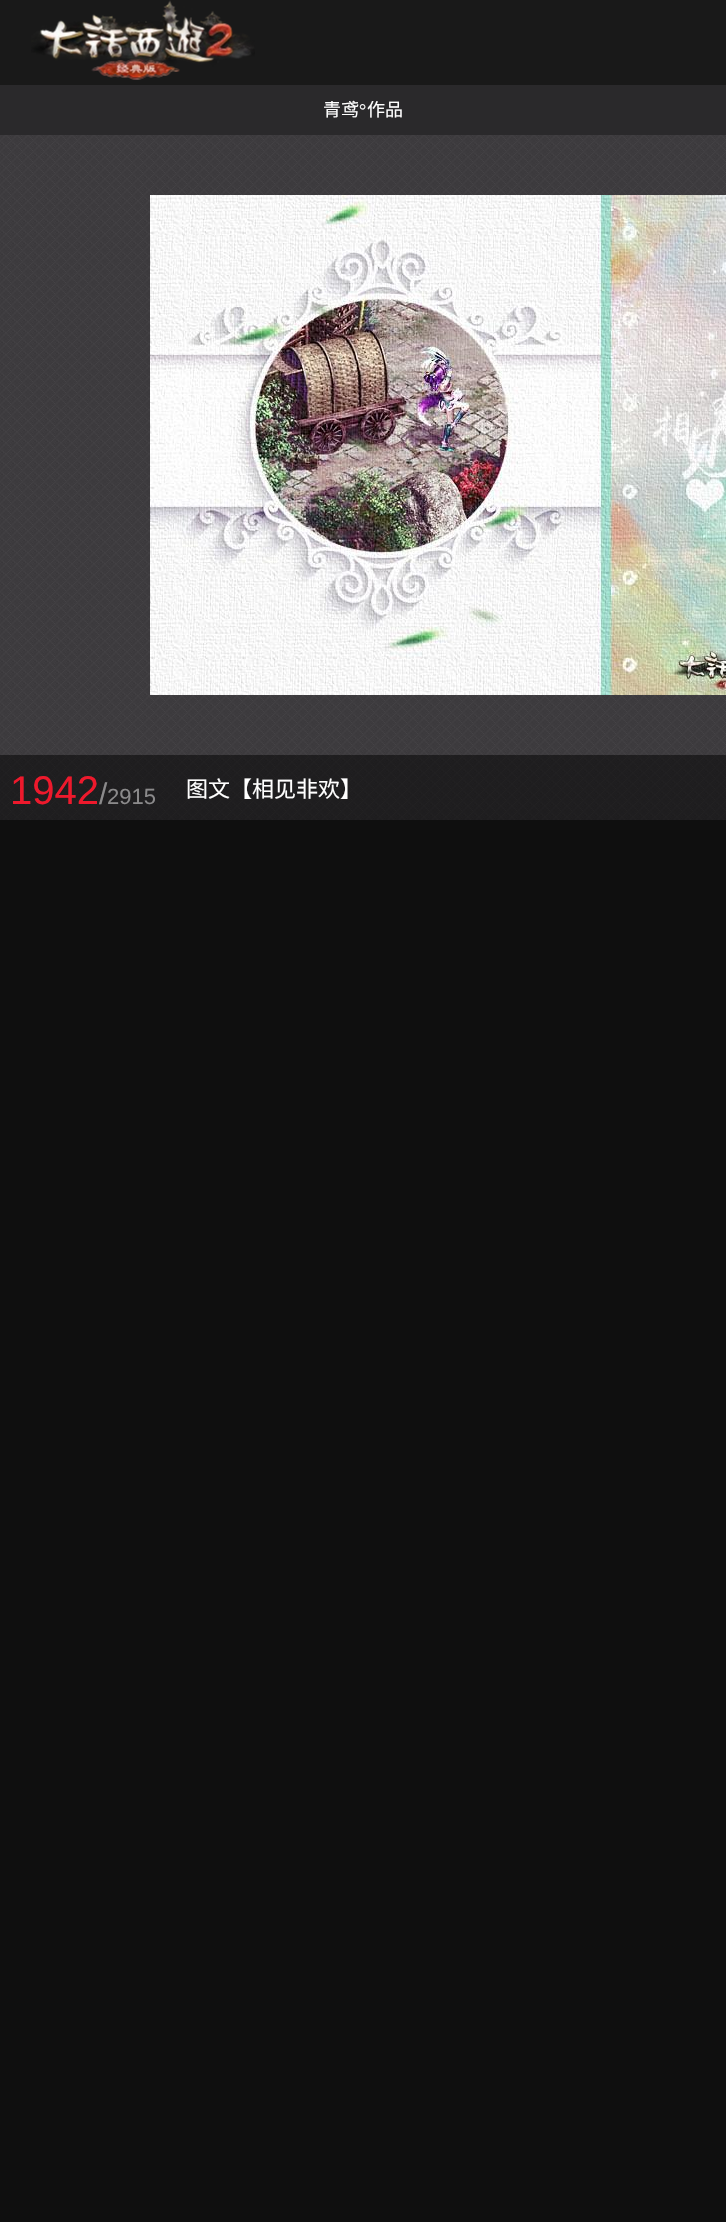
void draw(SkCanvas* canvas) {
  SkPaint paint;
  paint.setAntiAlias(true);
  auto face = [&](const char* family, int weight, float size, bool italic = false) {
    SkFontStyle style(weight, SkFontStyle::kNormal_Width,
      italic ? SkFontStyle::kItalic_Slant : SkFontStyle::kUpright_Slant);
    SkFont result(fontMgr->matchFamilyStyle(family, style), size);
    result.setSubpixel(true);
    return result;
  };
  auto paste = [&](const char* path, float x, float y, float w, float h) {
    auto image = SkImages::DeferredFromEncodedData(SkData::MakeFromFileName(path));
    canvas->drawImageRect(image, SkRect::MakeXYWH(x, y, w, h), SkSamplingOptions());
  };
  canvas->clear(0xff0f0f0f);
  paint.setColor(0xff191919);
  canvas->drawRect(SkRect::MakeXYWH(0, 0, 726, 85), paint);
  paste("img/1.png", 31, 0, 224, 80);
  paint.setColor(0xff2a292b);
  canvas->drawRect(SkRect::MakeXYWH(0, 85, 726, 50), paint);
  paste("img/2.png", 0, 135, 726, 685);
  paste("img/3.png", 150, 195, 576, 500);
  paint.setColor(0x80000000);
  canvas->drawRect(SkRect::MakeXYWH(0, 755, 726, 65), paint);
  auto f0 = face("Noto Sans CJK SC", 400, 18);
  paint.setColor(0xffffffff);
  canvas->drawString("青鸢", 323, 116, f0, paint);
  auto f1 = face("Liberation Serif", 400, 18);
  canvas->drawString("°", 359, 116, f1, paint);
  canvas->drawString("作品", 367, 116, f0, paint);
  auto f2 = face("Liberation Sans", 400, 40);
  paint.setColor(0xffee192c);
  canvas->drawString("1942", 10, 804, f2, paint);
  auto f3 = face("Liberation Sans", 400, 30);
  paint.setColor(0xff8b8a8b);
  canvas->drawString("/", 99, 804, f3, paint);
  auto f4 = face("Liberation Sans", 400, 22);
  canvas->drawString("2915", 107, 804, f4, paint);
  auto f5 = face("Noto Sans CJK SC", 400, 22);
  paint.setColor(0xffffffff);
  canvas->drawString("图文【相见非欢】", 186, 797, f5, paint);
}
